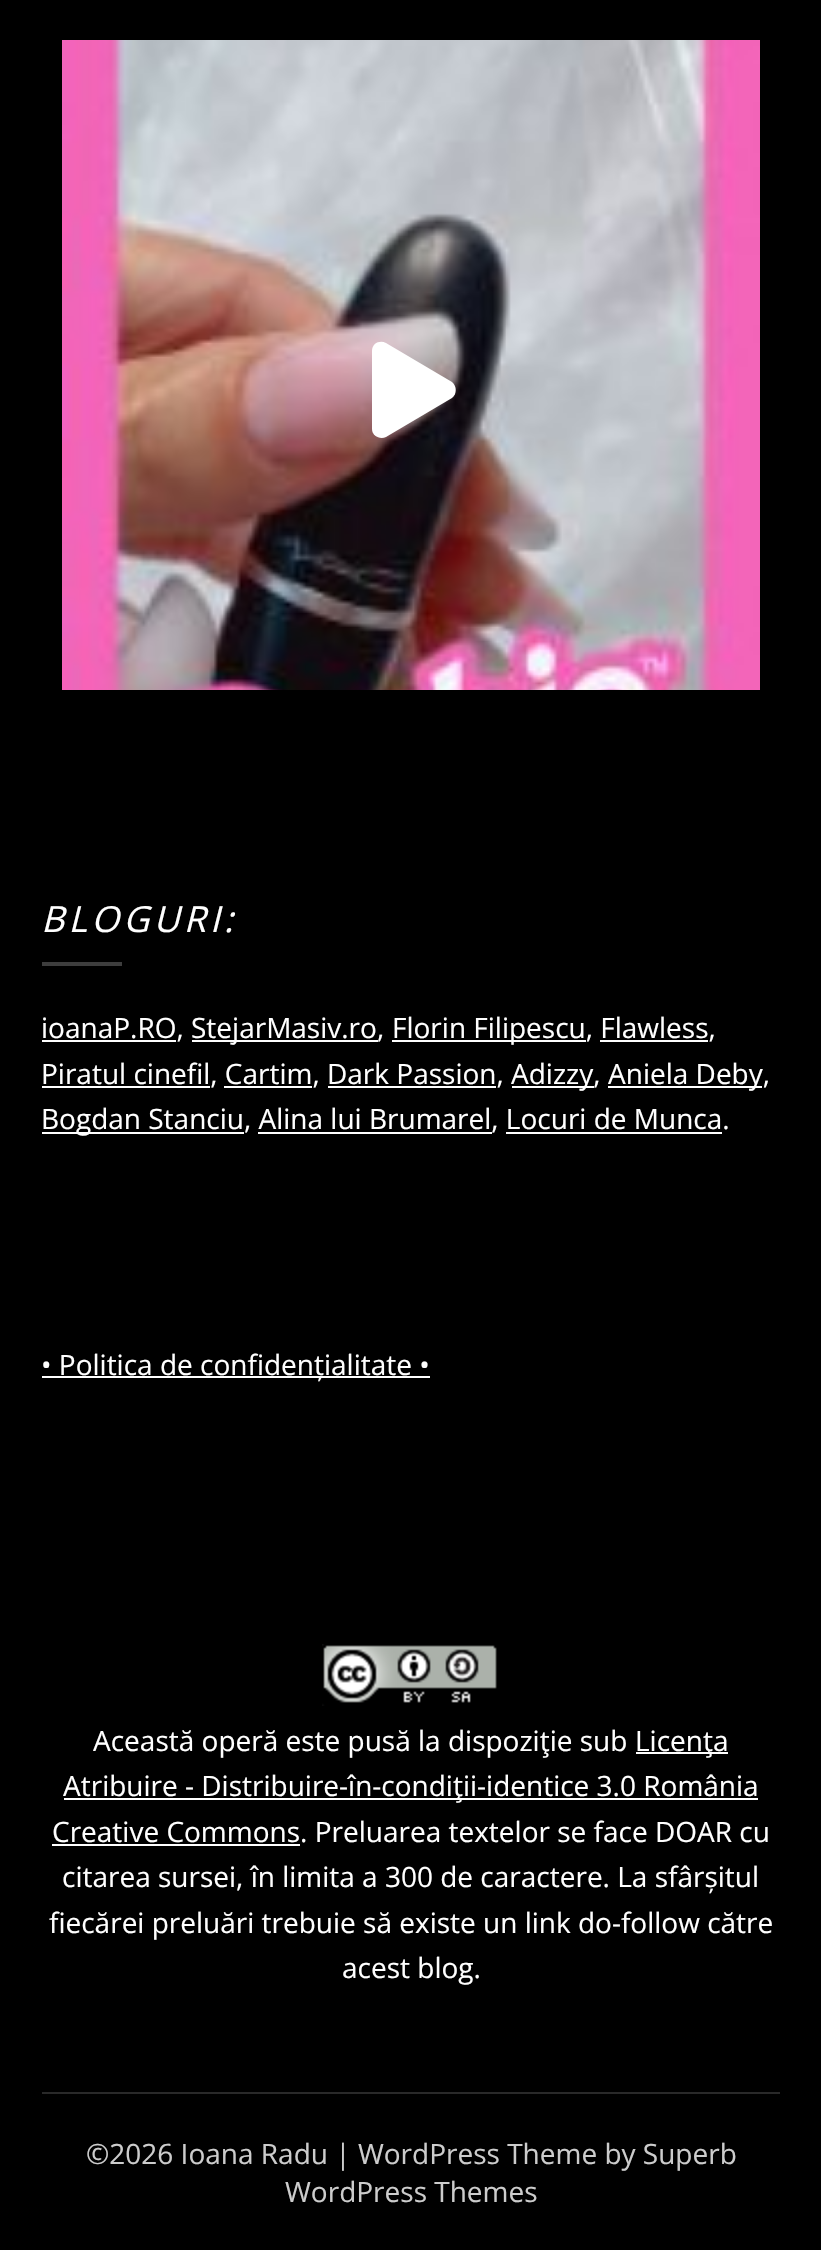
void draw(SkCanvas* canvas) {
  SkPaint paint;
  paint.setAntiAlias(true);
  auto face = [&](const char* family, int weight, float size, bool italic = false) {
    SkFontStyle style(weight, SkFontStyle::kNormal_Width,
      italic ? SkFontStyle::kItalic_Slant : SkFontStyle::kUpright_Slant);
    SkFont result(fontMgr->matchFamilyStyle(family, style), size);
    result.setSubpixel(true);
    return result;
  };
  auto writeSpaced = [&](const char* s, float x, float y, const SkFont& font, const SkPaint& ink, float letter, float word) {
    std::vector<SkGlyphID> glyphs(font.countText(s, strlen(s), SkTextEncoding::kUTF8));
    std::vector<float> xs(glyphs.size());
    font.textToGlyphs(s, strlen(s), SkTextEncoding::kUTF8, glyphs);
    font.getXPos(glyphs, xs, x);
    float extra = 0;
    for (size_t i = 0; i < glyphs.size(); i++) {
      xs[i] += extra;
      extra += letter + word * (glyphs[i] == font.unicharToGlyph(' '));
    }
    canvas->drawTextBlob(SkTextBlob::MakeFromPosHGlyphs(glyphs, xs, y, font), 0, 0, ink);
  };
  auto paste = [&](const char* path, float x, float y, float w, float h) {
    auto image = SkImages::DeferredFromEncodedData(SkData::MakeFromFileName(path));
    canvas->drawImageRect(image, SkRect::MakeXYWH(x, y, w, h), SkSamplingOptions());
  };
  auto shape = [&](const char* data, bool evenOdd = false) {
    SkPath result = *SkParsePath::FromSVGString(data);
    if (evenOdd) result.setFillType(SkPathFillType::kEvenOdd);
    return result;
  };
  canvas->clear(0xff000000);
  paste("img/1.png", 62, 40, 698, 650);
  paint.setColor(0xffffffff);
  canvas->drawPath(shape("M452 382L386 343C380 340 372 343 372 351V429C372 436 380 440 386 437L452 398C457 394 457 386 452 382Z"), paint);
  {
    const struct { float x, y, w, h; SkColor color; } items[] = {
      {42, 962, 80, 4, 0xff3d3d3d},
      {42, 1040, 134, 2, 0xffffffff},
      {192, 1040, 186, 2, 0xffffffff},
      {392, 1040, 194, 2, 0xffffffff},
      {600, 1040, 108, 2, 0xffffffff},
      {42, 1086, 168, 2, 0xffffffff},
      {512, 1086, 82, 2, 0xffffffff},
      {608, 1086, 154, 2, 0xffffffff},
      {224, 1086, 88, 2, 0xffffffff},
      {328, 1086, 168, 2, 0xffffffff},
      {42, 1132, 202, 2, 0xffffffff},
      {258, 1132, 234, 2, 0xffffffff},
      {506, 1132, 216, 2, 0xffffffff},
      {42, 1376, 388, 2, 0xffffffff},
    };
    for (auto [x, y, w, h, color] : items) {
      paint.setColor(color);
      canvas->drawRect(SkRect::MakeXYWH(x, y, w, h), paint);
    }
  }
  paste("img/2.png", 322, 1644, 175, 62);
  {
    const struct { float x, y, w, h; SkColor color; } items[] = {
      {636, 1752, 92, 2, 0xffffffff},
      {64, 1798, 694, 2, 0xffffffff},
      {52, 1844, 248, 2, 0xffffffff},
      {42, 2092, 738, 2, 0xff292929},
    };
    for (auto [x, y, w, h, color] : items) {
      paint.setColor(color);
      canvas->drawRect(SkRect::MakeXYWH(x, y, w, h), paint);
    }
  }
  auto f0 = face("Open Sans", 400, 36, true);
  paint.setColor(0xffffffff);
  writeSpaced("BLOGURI:", 41, 932, f0, paint, 4, 0);
  auto f1 = face("Open Sans", 400, 28);
  {
    const struct { const char* s; float x, y; } items[] = {
      {"ioanaP.RO,", 41, 1038},
      {"StejarMasiv.ro,", 191, 1038},
      {"Florin Filipescu, Flawless,", 392, 1038},
      {"Piratul cinefil, Cartim, Dark Passion,", 41, 1084},
      {"Adizzy,", 511, 1084},
      {"Aniela Deby,", 608, 1084},
      {"Bogdan Stanciu, Alina lui Brumarel, Locuri de Munca.", 41, 1129},
      {"• Politica de confidențialitate •", 41, 1375},
      {"Această operă este pusă la dispoziţie sub", 93, 1751},
      {"Licenţa", 635, 1751},
      {"Atribuire - Distribuire-în-condiţii-identice 3.0 România", 63, 1796},
      {"Creative Commons. Preluarea textelor se face DOAR cu", 52, 1842},
      {"citarea sursei, în limita a 300 de caractere. La sfârșitul", 62, 1887},
      {"fiecărei preluări trebuie să existe un link do-follow către", 49, 1933},
      {"acest blog.", 342, 1978},
    };
    for (auto [s, x, y] : items) {
      canvas->drawString(s, x, y, f1, paint);
    }
  }
  paint.setColor(0xffcccccc);
  canvas->drawString("©2026 Ioana Radu | WordPress Theme by Superb", 86, 2164, f1, paint);
  canvas->drawString("WordPress Themes", 285, 2202, f1, paint);
}
